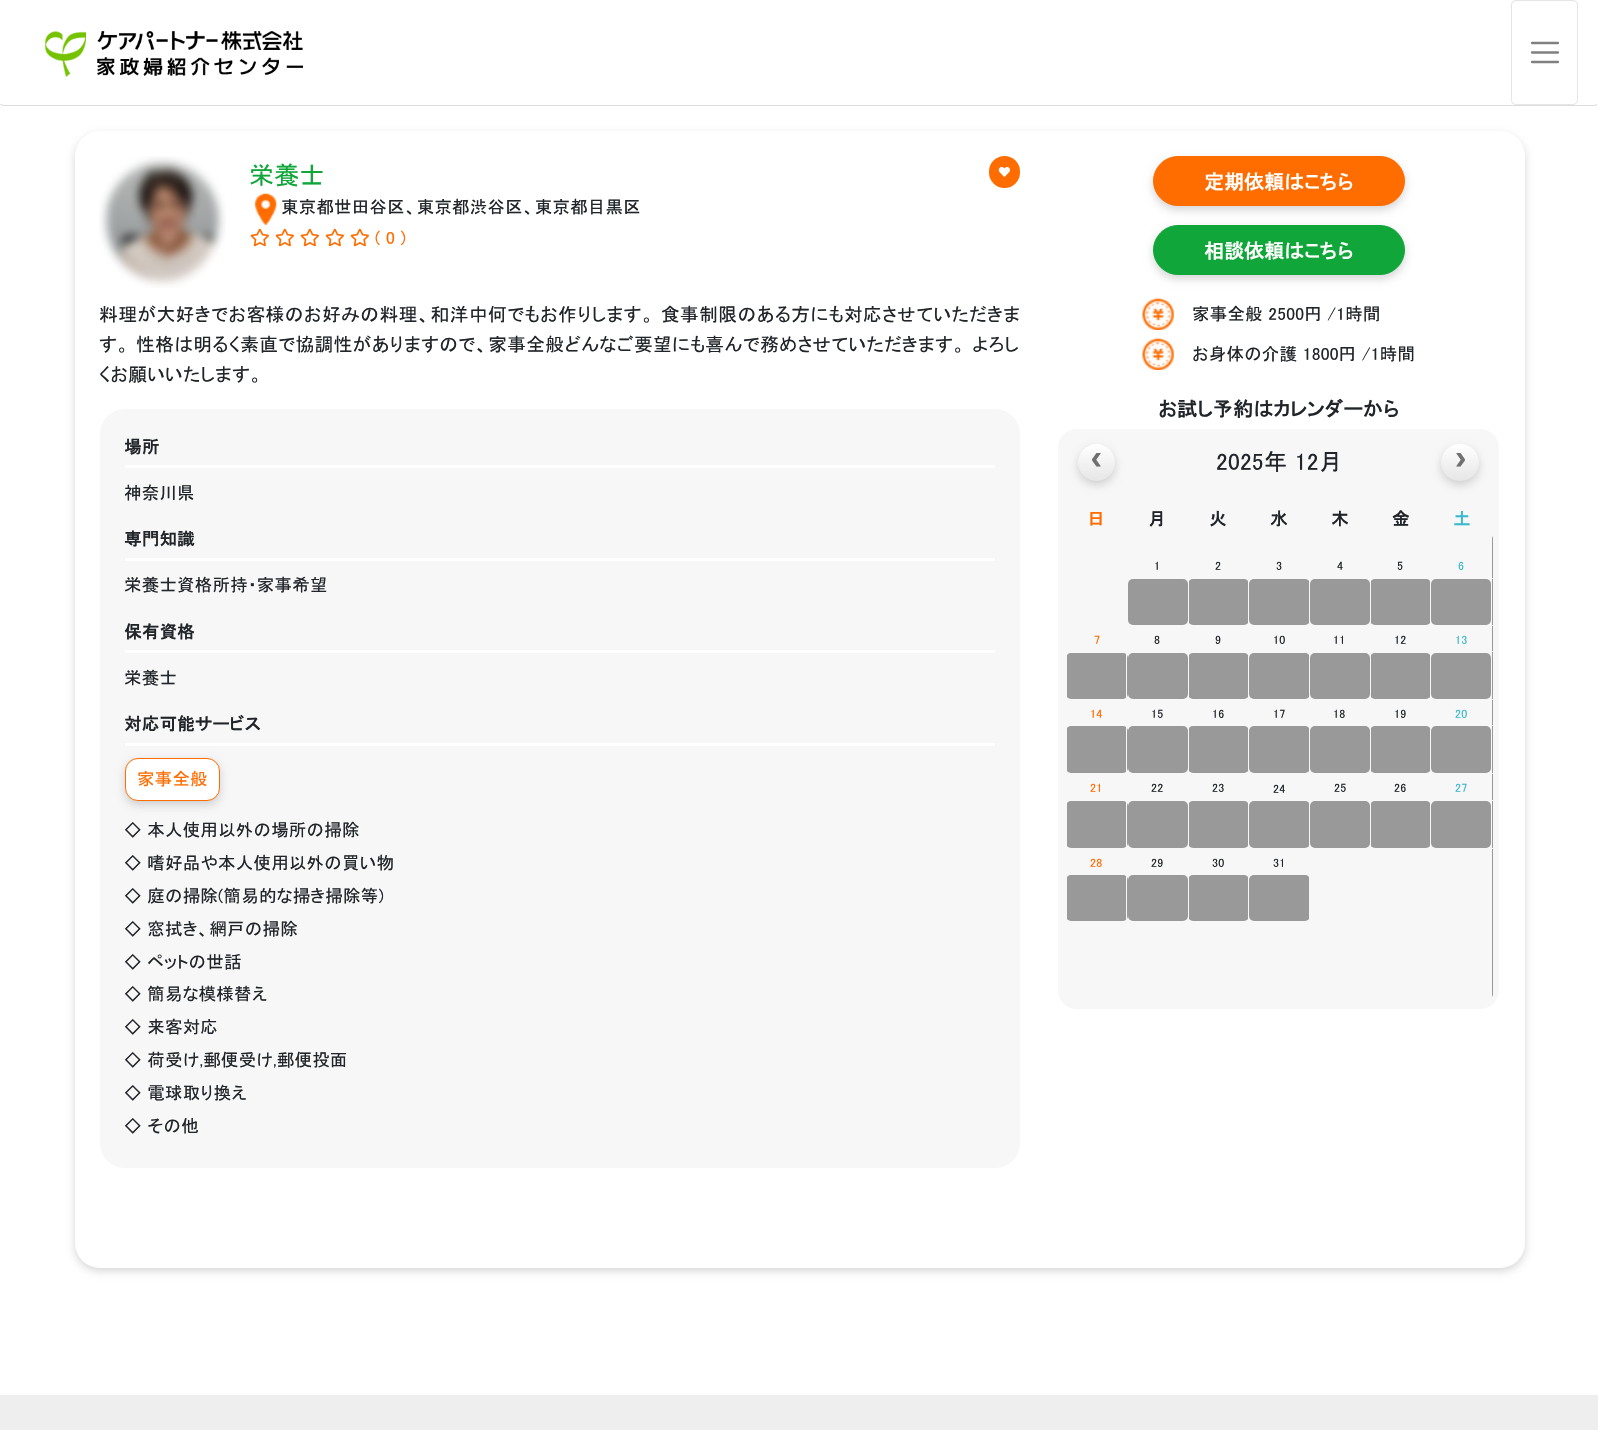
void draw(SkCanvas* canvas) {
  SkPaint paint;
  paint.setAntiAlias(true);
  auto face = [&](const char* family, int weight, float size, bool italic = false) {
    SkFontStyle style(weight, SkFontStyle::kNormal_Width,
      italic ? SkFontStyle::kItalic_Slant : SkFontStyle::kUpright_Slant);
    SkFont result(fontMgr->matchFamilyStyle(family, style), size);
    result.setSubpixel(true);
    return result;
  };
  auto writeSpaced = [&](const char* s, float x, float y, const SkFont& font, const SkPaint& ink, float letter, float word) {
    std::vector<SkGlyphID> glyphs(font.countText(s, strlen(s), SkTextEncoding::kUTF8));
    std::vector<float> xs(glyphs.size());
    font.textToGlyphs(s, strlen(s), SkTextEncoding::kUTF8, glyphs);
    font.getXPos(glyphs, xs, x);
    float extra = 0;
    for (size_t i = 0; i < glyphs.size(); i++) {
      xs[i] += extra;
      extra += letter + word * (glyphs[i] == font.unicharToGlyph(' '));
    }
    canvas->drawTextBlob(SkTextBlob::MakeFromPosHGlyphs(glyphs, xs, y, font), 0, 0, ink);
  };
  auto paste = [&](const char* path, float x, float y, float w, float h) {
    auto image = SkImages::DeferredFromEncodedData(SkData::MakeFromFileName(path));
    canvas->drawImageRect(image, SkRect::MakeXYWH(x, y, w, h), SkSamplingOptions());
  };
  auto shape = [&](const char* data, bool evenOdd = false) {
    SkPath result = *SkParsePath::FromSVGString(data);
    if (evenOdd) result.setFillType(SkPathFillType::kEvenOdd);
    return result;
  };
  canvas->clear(0xffffffff);
  paint.setStroke(true);
  paint.setStrokeWidth(1.2f);
  paint.setColor(0xffdddddd);
  canvas->drawPath(shape("M1597 104.5L1594 105.5H4L.5 104.5"), paint);
  paste("img/1.png", 45, 31, 258, 46);
  paint.setStrokeWidth(1);
  paint.setColor(0x1a000000);
  canvas->drawRoundRect(SkRect::MakeXYWH(1511.5f, 0.5f, 66, 104), 4.5f, 4.5f, paint);
  paint.setStrokeWidth(2.3f);
  paint.setStrokeCap(SkPaint::kRound_Cap);
  paint.setColor(0xff808080);
  canvas->drawPath(shape("M1532 43H1558M1532 52.5H1558M1532 62H1558"), paint);
  paint.setStroke(false);
  paint.setColor(0x29000000);
  paint.setMaskFilter(SkMaskFilter::MakeBlur(kNormal_SkBlurStyle, 4));
  canvas->drawRoundRect(SkRect::MakeXYWH(75, 135, 1450, 1136), 25, 25, paint);
  paint.setMaskFilter(nullptr);
  paint.setColor(0xffffffff);
  canvas->drawRoundRect(SkRect::MakeXYWH(75, 131, 1450, 1137), 25, 25, paint);
  paste("img/2.png", 99, 156, 127, 132);
  paste("img/3.png", 254, 193, 23, 32);
  paste("img/4.png", 250, 228, 19, 19);
  paste("img/4.png", 275, 228, 19, 19);
  paste("img/4.png", 300, 228, 19, 19);
  paste("img/4.png", 325, 228, 19, 19);
  paste("img/4.png", 350, 228, 19, 19);
  paint.setColor(0xffff6c00);
  canvas->drawRoundRect(SkRect::MakeXYWH(989, 156, 31, 32), 15.5f, 15.5f, paint);
  paste("img/5.png", 998, 167, 12, 10);
  paint.setColor(0x29000000);
  paint.setMaskFilter(SkMaskFilter::MakeBlur(kNormal_SkBlurStyle, 4));
  canvas->drawRoundRect(SkRect::MakeXYWH(1153, 160, 252, 50), 25, 25, paint);
  paint.setMaskFilter(nullptr);
  paint.setColor(0xffff6c00);
  canvas->drawRoundRect(SkRect::MakeXYWH(1153.5f, 156.5f, 251, 49), 24.5f, 24.5f, paint);
  paint.setStroke(true);
  paint.setStrokeWidth(1);
  paint.setStrokeCap(SkPaint::kButt_Cap);
  canvas->drawRoundRect(SkRect::MakeXYWH(1153.5f, 156.5f, 251, 49), 24.5f, 24.5f, paint);
  paint.setStroke(false);
  paint.setColor(0x29000000);
  paint.setMaskFilter(SkMaskFilter::MakeBlur(kNormal_SkBlurStyle, 4));
  canvas->drawRoundRect(SkRect::MakeXYWH(1153, 229, 252, 50), 25, 25, paint);
  paint.setMaskFilter(nullptr);
  paint.setColor(0xff10a63a);
  canvas->drawRoundRect(SkRect::MakeXYWH(1153.5f, 225.5f, 251, 49), 24.5f, 24.5f, paint);
  paint.setStroke(true);
  canvas->drawRoundRect(SkRect::MakeXYWH(1153.5f, 225.5f, 251, 49), 24.5f, 24.5f, paint);
  paste("img/6.png", 1142, 298, 32, 32);
  paste("img/6.png", 1142, 338, 32, 32);
  paint.setStroke(false);
  paint.setColor(0xfff7f7f7);
  canvas->drawRoundRect(SkRect::MakeXYWH(100, 409, 920, 759), 25, 25, paint);
  {
    const struct { float x, y, w, h; SkColor color; } items[] = {
      {125, 465, 870, 3, 0xffffffff},
      {125, 558, 870, 3, 0xffffffff},
      {125, 650, 870, 3, 0xffffffff},
      {125, 743, 870, 3, 0xffffffff},
    };
    for (auto [x, y, w, h, color] : items) {
      paint.setColor(color);
      canvas->drawRect(SkRect::MakeXYWH(x, y, w, h), paint);
    }
  }
  paint.setColor(0x29000000);
  paint.setMaskFilter(SkMaskFilter::MakeBlur(kNormal_SkBlurStyle, 4));
  canvas->drawRoundRect(SkRect::MakeXYWH(125, 761, 95, 44), 13, 13, paint);
  paint.setMaskFilter(nullptr);
  paint.setColor(0xffffffff);
  canvas->drawRoundRect(SkRect::MakeXYWH(125.5f, 758.5f, 94, 42), 12.5f, 12.5f, paint);
  paint.setStroke(true);
  paint.setColor(0xffff6c00);
  canvas->drawRoundRect(SkRect::MakeXYWH(125.5f, 758.5f, 94, 42), 12.5f, 12.5f, paint);
  paint.setStroke(false);
  paint.setColor(0xfff7f7f7);
  canvas->drawRoundRect(SkRect::MakeXYWH(1058, 429, 441, 580), 19, 19, paint);
  paint.setColor(0x29000000);
  paint.setMaskFilter(SkMaskFilter::MakeBlur(kNormal_SkBlurStyle, 4));
  canvas->drawRoundRect(SkRect::MakeXYWH(1078, 448, 37, 37), 18.5f, 18.5f, paint);
  paint.setMaskFilter(nullptr);
  {
    const SkColor colors[] = {0xffffffff, 0xffe6e6e6};
    const float stops[] = {0, 1};
    const SkPoint ends[] = {{1097, 444}, {1097, 481}};
    paint.setShader(SkGradientShader::MakeLinear(ends, colors, stops, 2, SkTileMode::kClamp));
    paint.setAlpha(255);
  }
  canvas->drawCircle(1096.5f, 462.5f, 18.5f, paint);
  paint.setShader(nullptr);
  paint.setColor(0x29000000);
  paint.setMaskFilter(SkMaskFilter::MakeBlur(kNormal_SkBlurStyle, 4));
  canvas->drawRoundRect(SkRect::MakeXYWH(1441, 448, 38, 37), 18.5f, 18.5f, paint);
  paint.setMaskFilter(nullptr);
  {
    const SkColor colors[] = {0xffffffff, 0xffe6e6e6};
    const float stops[] = {0, 1};
    const SkPoint ends[] = {{1460, 444}, {1460, 481}};
    paint.setShader(SkGradientShader::MakeLinear(ends, colors, stops, 2, SkTileMode::kClamp));
    paint.setAlpha(255);
  }
  canvas->drawRoundRect(SkRect::MakeXYWH(1441, 444, 38, 37), 18.5f, 18.5f, paint);
  paint.setShader(nullptr);
  paint.setColor(0xff999999);
  canvas->drawRoundRect(SkRect::MakeXYWH(1066, 534, 427, 465), 5, 5, paint);
  {
    const struct { float x, y, w, h; SkColor color; } items[] = {
      {1491, 533, 1, 466, 0xfff7f7f7},
      {1065, 998, 428, 1, 0xfff7f7f7},
      {1066, 534, 425, 464, 0xfff7f7f7},
    };
    for (auto [x, y, w, h, color] : items) {
      paint.setColor(color);
      canvas->drawRect(SkRect::MakeXYWH(x, y, w, h), paint);
    }
  }
  paint.setColor(0xff999999);
  canvas->drawRoundRect(SkRect::MakeXYWH(1128, 579, 60, 46), 5, 5, paint);
  canvas->drawRoundRect(SkRect::MakeXYWH(1188, 579, 61, 46), 5, 5, paint);
  paint.setColor(0xfff7f7f7);
  canvas->drawRect(SkRect::MakeXYWH(1188, 578, 1, 48), paint);
  paint.setColor(0xff999999);
  canvas->drawRoundRect(SkRect::MakeXYWH(1249, 579, 61, 46), 5, 5, paint);
  paint.setColor(0xfff7f7f7);
  canvas->drawRect(SkRect::MakeXYWH(1248, 578, 1, 48), paint);
  paint.setColor(0xff999999);
  canvas->drawRoundRect(SkRect::MakeXYWH(1310, 579, 60, 46), 5, 5, paint);
  paint.setColor(0xfff7f7f7);
  canvas->drawRect(SkRect::MakeXYWH(1309, 578, 1, 48), paint);
  paint.setColor(0xff999999);
  canvas->drawRoundRect(SkRect::MakeXYWH(1370, 579, 61, 46), 5, 5, paint);
  paint.setColor(0xfff7f7f7);
  canvas->drawRect(SkRect::MakeXYWH(1370, 578, 1, 48), paint);
  paint.setColor(0xff999999);
  canvas->drawRoundRect(SkRect::MakeXYWH(1431, 579, 60, 46), 5, 5, paint);
  {
    const struct { float x, y, w, h; SkColor color; } items[] = {
      {1492, 578, 1, 1, 0xfff7f7f7},
      {1492, 625, 1, 1, 0xfff7f7f7},
      {1430, 578, 1, 48, 0xfff7f7f7},
    };
    for (auto [x, y, w, h, color] : items) {
      paint.setColor(color);
      canvas->drawRect(SkRect::MakeXYWH(x, y, w, h), paint);
    }
  }
  paint.setColor(0xff999999);
  canvas->drawRoundRect(SkRect::MakeXYWH(1066, 653, 62, 46), 5, 5, paint);
  paint.setColor(0xfff7f7f7);
  canvas->drawRect(SkRect::MakeXYWH(1066, 651, 1, 49), paint);
  paint.setColor(0xff999999);
  canvas->drawRoundRect(SkRect::MakeXYWH(1128, 653, 60, 46), 5, 5, paint);
  paint.setColor(0xfff7f7f7);
  canvas->drawRect(SkRect::MakeXYWH(1126, 651, 1, 49), paint);
  paint.setColor(0xff999999);
  canvas->drawRoundRect(SkRect::MakeXYWH(1188, 653, 61, 46), 5, 5, paint);
  paint.setColor(0xfff7f7f7);
  canvas->drawRect(SkRect::MakeXYWH(1188, 651, 1, 49), paint);
  paint.setColor(0xff999999);
  canvas->drawRoundRect(SkRect::MakeXYWH(1249, 653, 61, 46), 5, 5, paint);
  paint.setColor(0xfff7f7f7);
  canvas->drawRect(SkRect::MakeXYWH(1248, 651, 1, 49), paint);
  paint.setColor(0xff999999);
  canvas->drawRoundRect(SkRect::MakeXYWH(1310, 653, 60, 46), 5, 5, paint);
  paint.setColor(0xfff7f7f7);
  canvas->drawRect(SkRect::MakeXYWH(1309, 651, 1, 49), paint);
  paint.setColor(0xff999999);
  canvas->drawRoundRect(SkRect::MakeXYWH(1370, 653, 61, 46), 5, 5, paint);
  paint.setColor(0xfff7f7f7);
  canvas->drawRect(SkRect::MakeXYWH(1370, 651, 1, 49), paint);
  paint.setColor(0xff999999);
  canvas->drawRoundRect(SkRect::MakeXYWH(1431, 653, 60, 46), 5, 5, paint);
  {
    const struct { float x, y, w, h; SkColor color; } items[] = {
      {1492, 651, 1, 1, 0xfff7f7f7},
      {1492, 699, 1, 1, 0xfff7f7f7},
      {1430, 651, 1, 49, 0xfff7f7f7},
    };
    for (auto [x, y, w, h, color] : items) {
      paint.setColor(color);
      canvas->drawRect(SkRect::MakeXYWH(x, y, w, h), paint);
    }
  }
  paint.setColor(0xff999999);
  canvas->drawRoundRect(SkRect::MakeXYWH(1066, 726, 62, 47), 5, 5, paint);
  paint.setColor(0xfff7f7f7);
  canvas->drawRect(SkRect::MakeXYWH(1066, 725, 1, 49), paint);
  paint.setColor(0xff999999);
  canvas->drawRoundRect(SkRect::MakeXYWH(1128, 726, 60, 47), 5, 5, paint);
  paint.setColor(0xfff7f7f7);
  canvas->drawRect(SkRect::MakeXYWH(1126, 725, 1, 49), paint);
  paint.setColor(0xff999999);
  canvas->drawRoundRect(SkRect::MakeXYWH(1188, 726, 61, 47), 5, 5, paint);
  paint.setColor(0xfff7f7f7);
  canvas->drawRect(SkRect::MakeXYWH(1188, 725, 1, 49), paint);
  paint.setColor(0xff999999);
  canvas->drawRoundRect(SkRect::MakeXYWH(1249, 726, 61, 47), 5, 5, paint);
  paint.setColor(0xfff7f7f7);
  canvas->drawRect(SkRect::MakeXYWH(1248, 725, 1, 49), paint);
  paint.setColor(0xff999999);
  canvas->drawRoundRect(SkRect::MakeXYWH(1310, 726, 60, 47), 5, 5, paint);
  paint.setColor(0xfff7f7f7);
  canvas->drawRect(SkRect::MakeXYWH(1309, 725, 1, 49), paint);
  paint.setColor(0xff999999);
  canvas->drawRoundRect(SkRect::MakeXYWH(1370, 726, 61, 47), 5, 5, paint);
  paint.setColor(0xfff7f7f7);
  canvas->drawRect(SkRect::MakeXYWH(1370, 725, 1, 49), paint);
  paint.setColor(0xff999999);
  canvas->drawRoundRect(SkRect::MakeXYWH(1431, 726, 60, 47), 5, 5, paint);
  {
    const struct { float x, y, w, h; SkColor color; } items[] = {
      {1492, 725, 1, 1, 0xfff7f7f7},
      {1492, 773, 1, 1, 0xfff7f7f7},
      {1430, 725, 1, 49, 0xfff7f7f7},
    };
    for (auto [x, y, w, h, color] : items) {
      paint.setColor(color);
      canvas->drawRect(SkRect::MakeXYWH(x, y, w, h), paint);
    }
  }
  paint.setColor(0xff999999);
  canvas->drawRoundRect(SkRect::MakeXYWH(1066, 801, 62, 47), 5, 5, paint);
  paint.setColor(0xfff7f7f7);
  canvas->drawRect(SkRect::MakeXYWH(1066, 800, 1, 49), paint);
  paint.setColor(0xff999999);
  canvas->drawRoundRect(SkRect::MakeXYWH(1128, 801, 60, 47), 5, 5, paint);
  paint.setColor(0xfff7f7f7);
  canvas->drawRect(SkRect::MakeXYWH(1126, 800, 1, 49), paint);
  paint.setColor(0xff999999);
  canvas->drawRoundRect(SkRect::MakeXYWH(1188, 801, 61, 47), 5, 5, paint);
  paint.setColor(0xfff7f7f7);
  canvas->drawRect(SkRect::MakeXYWH(1188, 800, 1, 49), paint);
  paint.setColor(0xff999999);
  canvas->drawRoundRect(SkRect::MakeXYWH(1249, 801, 61, 47), 5, 5, paint);
  paint.setColor(0xfff7f7f7);
  canvas->drawRect(SkRect::MakeXYWH(1248, 800, 1, 49), paint);
  paint.setColor(0xff999999);
  canvas->drawRoundRect(SkRect::MakeXYWH(1310, 801, 60, 47), 5, 5, paint);
  paint.setColor(0xfff7f7f7);
  canvas->drawRect(SkRect::MakeXYWH(1309, 800, 1, 49), paint);
  paint.setColor(0xff999999);
  canvas->drawRoundRect(SkRect::MakeXYWH(1370, 801, 61, 47), 5, 5, paint);
  paint.setColor(0xfff7f7f7);
  canvas->drawRect(SkRect::MakeXYWH(1370, 800, 1, 49), paint);
  paint.setColor(0xff999999);
  canvas->drawRoundRect(SkRect::MakeXYWH(1431, 801, 60, 47), 5, 5, paint);
  {
    const struct { float x, y, w, h; SkColor color; } items[] = {
      {1492, 800, 1, 1, 0xfff7f7f7},
      {1492, 848, 1, 1, 0xfff7f7f7},
      {1430, 800, 1, 49, 0xfff7f7f7},
    };
    for (auto [x, y, w, h, color] : items) {
      paint.setColor(color);
      canvas->drawRect(SkRect::MakeXYWH(x, y, w, h), paint);
    }
  }
  paint.setColor(0xff999999);
  canvas->drawRoundRect(SkRect::MakeXYWH(1066, 875, 62, 46), 5, 5, paint);
  paint.setColor(0xfff7f7f7);
  canvas->drawRect(SkRect::MakeXYWH(1066, 874, 1, 49), paint);
  paint.setColor(0xff999999);
  canvas->drawRoundRect(SkRect::MakeXYWH(1128, 875, 60, 46), 5, 5, paint);
  paint.setColor(0xfff7f7f7);
  canvas->drawRect(SkRect::MakeXYWH(1126, 874, 1, 49), paint);
  paint.setColor(0xff999999);
  canvas->drawRoundRect(SkRect::MakeXYWH(1188, 875, 61, 46), 5, 5, paint);
  paint.setColor(0xfff7f7f7);
  canvas->drawRect(SkRect::MakeXYWH(1188, 874, 1, 49), paint);
  paint.setColor(0xff999999);
  canvas->drawRoundRect(SkRect::MakeXYWH(1249, 875, 61, 46), 5, 5, paint);
  {
    const struct { float x, y, w, h; SkColor color; } items[] = {
      {1309, 874, 1, 49, 0xfff7f7f7},
      {1248, 874, 1, 49, 0xfff7f7f7},
      {0, 1395, 1598, 35, 0xffeeeeee},
    };
    for (auto [x, y, w, h, color] : items) {
      paint.setColor(color);
      canvas->drawRect(SkRect::MakeXYWH(x, y, w, h), paint);
    }
  }
  auto f0 = face("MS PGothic", 400, 25);
  paint.setColor(0xff10a63a);
  writeSpaced("栄養士", 249, 184, f0, paint, 0.2f, 0);
  auto f1 = face("MS PGothic", 400, 17.5f);
  paint.setColor(0xff212529);
  writeSpaced("東京都世田谷区、東京都渋谷区、東京都目黒区", 281, 213, f1, paint, 0.2f, 0);
  paint.setColor(0xffff6c00);
  writeSpaced("( 0 )", 375, 244, f1, paint, 0.2f, 0);
  auto f2 = face("MS PGothic", 700, 20);
  paint.setColor(0xffffffff);
  canvas->drawString("定期依頼はこちら", 1204, 189, f2, paint);
  canvas->drawString("相談依頼はこちら", 1204, 258, f2, paint);
  paint.setColor(0xff212529);
  writeSpaced("家事全般 2500円 /1時間", 1192, 320, f1, paint, 0.2f, 0);
  writeSpaced("お身体の介護 1800円 /1時間", 1192, 360, f1, paint, 0.2f, 0);
  auto f3 = face("MS PGothic", 400, 18.75f);
  writeSpaced("料理が大好きでお客様のお好みの料理、和洋中何でもお作りします。 食事制限のある方にも対応させていただきま", 99, 321, f3, paint, 0.4f, 0);
  writeSpaced("す。 性格は明るく素直で協調性がありますので、家事全般どんなご要望にも喜んで務めさせていただきます。 よろし", 99, 351, f3, paint, 0.3f, 0);
  writeSpaced("くお願いいたします。", 99, 381, f3, paint, 0.2f, 0);
  auto f4 = face("MS PGothic", 700, 17.5f);
  writeSpaced("場所", 124, 453, f4, paint, 0.2f, 0);
  writeSpaced("神奈川県", 124, 499, f1, paint, 0.2f, 0);
  writeSpaced("専門知識", 124, 545, f4, paint, 0.2f, 0);
  writeSpaced("栄養士資格所持・家事希望", 124, 591, f1, paint, 0.2f, 0);
  writeSpaced("保有資格", 124, 638, f4, paint, 0.2f, 0);
  writeSpaced("栄養士", 124, 684, f1, paint, 0.2f, 0);
  writeSpaced("対応可能サービス", 124, 730, f4, paint, 0.2f, 0);
  paint.setColor(0xffff6c00);
  writeSpaced("家事全般", 137, 785, f1, paint, 0.2f, 0);
  paint.setColor(0xff212529);
  {
    const struct { const char* s; float x, y; } items[] = {
      {"◇ 本人使用以外の場所の掃除", 124, 836},
      {"◇ 嗜好品や本人使用以外の買い物", 124, 869},
      {"◇ 庭の掃除(簡易的な掃き掃除等)", 124, 902},
      {"◇ 窓拭き、網戸の掃除", 124, 935},
      {"◇ ペットの世話", 124, 968},
      {"◇ 簡易な模様替え", 124, 1000},
      {"◇ 来客対応", 124, 1033},
      {"◇ 荷受け,郵便受け,郵便投面", 124, 1066},
      {"◇ 電球取り換え", 124, 1099},
      {"◇ その他", 124, 1132},
    };
    for (auto [s, x, y] : items) {
      writeSpaced(s, x, y, f1, paint, 0.2f, 0);
    }
  }
  writeSpaced("お試し予約はカレンダーから", 1158, 416, f2, paint, 0.2f, 0);
  auto f5 = face("MS PGothic", 400, 23.5f);
  writeSpaced("2025年 12月", 1216, 470, f5, paint, 0.2f, 0);
  canvas->save();
  canvas->clipRect(SkRect::MakeXYWH(1088, 453, 17, 17));
  auto f6 = face("Liberation Mono", 700, 35);
  paint.setColor(0xff707070);
  canvas->drawString("‹", 1086, 469, f6, paint);
  canvas->restore();
  canvas->save();
  canvas->clipRect(SkRect::MakeXYWH(1451, 453, 18, 17));
  canvas->drawString("›", 1450, 469, f6, paint);
  canvas->restore();
  paint.setColor(0xffff6c00);
  writeSpaced("日", 1087, 525, f4, paint, 0.2f, 0);
  paint.setColor(0xff212529);
  {
    const struct { const char* s; float x, y; } items[] = {
      {"月", 1148, 525},
      {"火", 1209, 525},
      {"水", 1270, 525},
      {"木", 1331, 525},
      {"金", 1392, 525},
    };
    for (auto [s, x, y] : items) {
      writeSpaced(s, x, y, f4, paint, 0.2f, 0);
    }
  }
  paint.setColor(0xff3cb9cf);
  writeSpaced("土", 1453, 525, f4, paint, 0.2f, 0);
  auto f7 = face("MS PGothic", 400, 12);
  paint.setColor(0xff212529);
  {
    const struct { const char* s; float x, y; } items[] = {
      {"1", 1154, 570},
      {"2", 1215, 570},
      {"3", 1276, 570},
      {"4", 1337, 570},
      {"5", 1397, 570},
    };
    for (auto [s, x, y] : items) {
      writeSpaced(s, x, y, f7, paint, 0.2f, 0);
    }
  }
  paint.setColor(0xff3cb9cf);
  writeSpaced("6", 1458, 570, f7, paint, 0.2f, 0);
  paint.setColor(0xffff6c00);
  writeSpaced("7", 1094, 644, f7, paint, 0.2f, 0);
  paint.setColor(0xff212529);
  {
    const struct { const char* s; float x, y; } items[] = {
      {"8", 1154, 644},
      {"9", 1215, 644},
      {"10", 1273, 644},
      {"11", 1333, 644},
      {"12", 1394, 644},
    };
    for (auto [s, x, y] : items) {
      writeSpaced(s, x, y, f7, paint, 0.2f, 0);
    }
  }
  paint.setColor(0xff3cb9cf);
  writeSpaced("13", 1455, 644, f7, paint, 0.2f, 0);
  paint.setColor(0xffff6c00);
  writeSpaced("14", 1090, 718, f7, paint, 0.2f, 0);
  paint.setColor(0xff212529);
  {
    const struct { const char* s; float x, y; } items[] = {
      {"15", 1151, 718},
      {"16", 1212, 718},
      {"17", 1273, 718},
      {"18", 1333, 718},
      {"19", 1394, 718},
    };
    for (auto [s, x, y] : items) {
      writeSpaced(s, x, y, f7, paint, 0.2f, 0);
    }
  }
  paint.setColor(0xff3cb9cf);
  writeSpaced("20", 1455, 718, f7, paint, 0.2f, 0);
  paint.setColor(0xffff6c00);
  writeSpaced("21", 1090, 792, f7, paint, 0.2f, 0);
  paint.setColor(0xff212529);
  {
    const struct { const char* s; float x, y; } items[] = {
      {"22", 1151, 792},
      {"23", 1212, 792},
      {"24", 1273, 793},
      {"25", 1334, 792},
      {"26", 1394, 792},
    };
    for (auto [s, x, y] : items) {
      writeSpaced(s, x, y, f7, paint, 0.2f, 0);
    }
  }
  paint.setColor(0xff3cb9cf);
  writeSpaced("27", 1455, 792, f7, paint, 0.2f, 0);
  paint.setColor(0xffff6c00);
  writeSpaced("28", 1090, 867, f7, paint, 0.2f, 0);
  paint.setColor(0xff212529);
  {
    const struct { const char* s; float x, y; } items[] = {
      {"29", 1151, 867},
      {"30", 1212, 867},
      {"31", 1273, 867},
    };
    for (auto [s, x, y] : items) {
      writeSpaced(s, x, y, f7, paint, 0.2f, 0);
    }
  }
}
